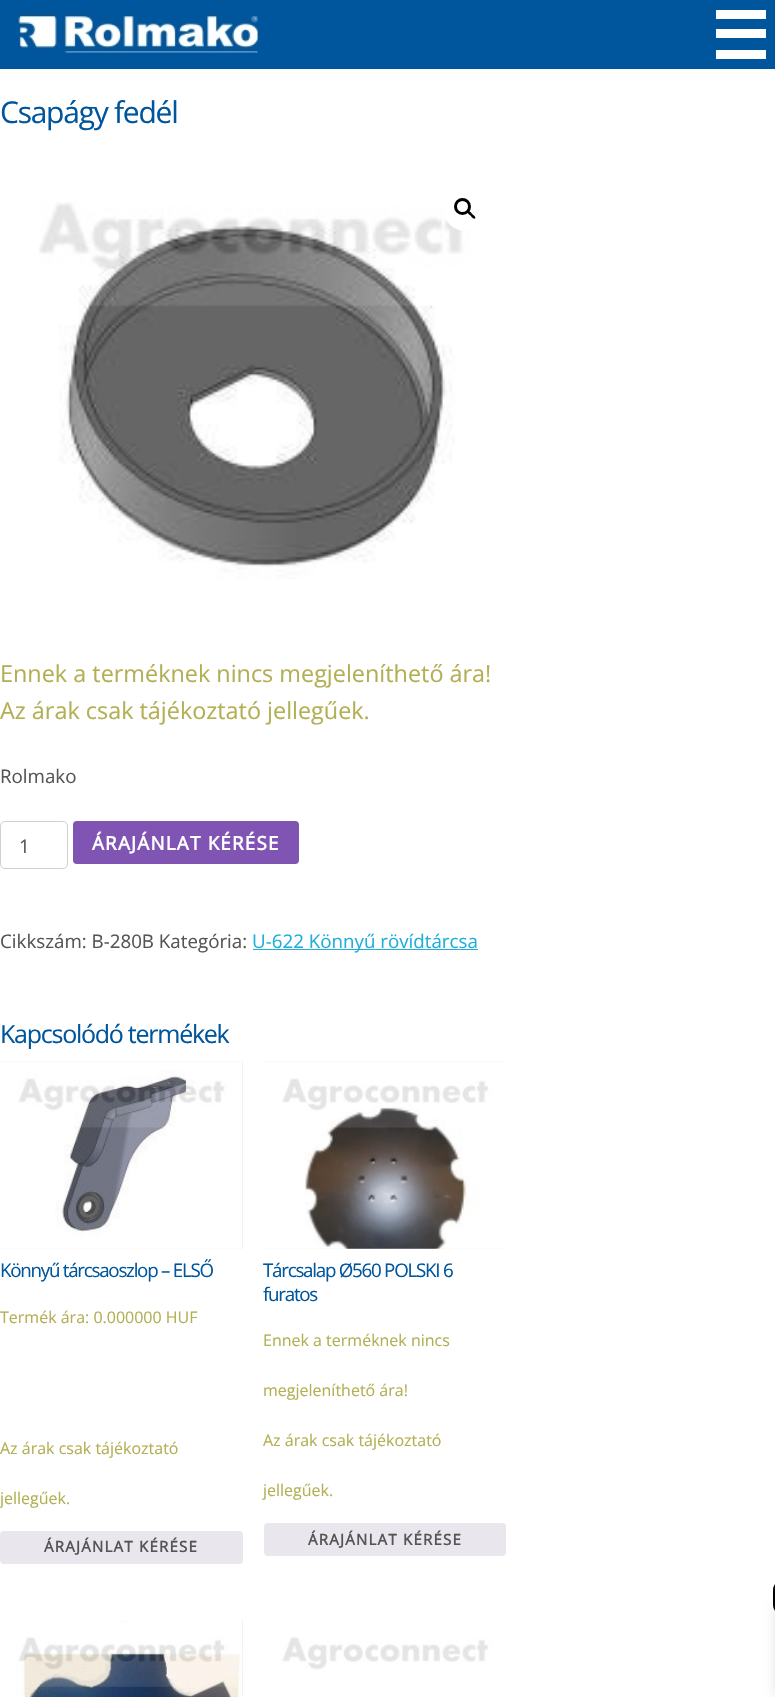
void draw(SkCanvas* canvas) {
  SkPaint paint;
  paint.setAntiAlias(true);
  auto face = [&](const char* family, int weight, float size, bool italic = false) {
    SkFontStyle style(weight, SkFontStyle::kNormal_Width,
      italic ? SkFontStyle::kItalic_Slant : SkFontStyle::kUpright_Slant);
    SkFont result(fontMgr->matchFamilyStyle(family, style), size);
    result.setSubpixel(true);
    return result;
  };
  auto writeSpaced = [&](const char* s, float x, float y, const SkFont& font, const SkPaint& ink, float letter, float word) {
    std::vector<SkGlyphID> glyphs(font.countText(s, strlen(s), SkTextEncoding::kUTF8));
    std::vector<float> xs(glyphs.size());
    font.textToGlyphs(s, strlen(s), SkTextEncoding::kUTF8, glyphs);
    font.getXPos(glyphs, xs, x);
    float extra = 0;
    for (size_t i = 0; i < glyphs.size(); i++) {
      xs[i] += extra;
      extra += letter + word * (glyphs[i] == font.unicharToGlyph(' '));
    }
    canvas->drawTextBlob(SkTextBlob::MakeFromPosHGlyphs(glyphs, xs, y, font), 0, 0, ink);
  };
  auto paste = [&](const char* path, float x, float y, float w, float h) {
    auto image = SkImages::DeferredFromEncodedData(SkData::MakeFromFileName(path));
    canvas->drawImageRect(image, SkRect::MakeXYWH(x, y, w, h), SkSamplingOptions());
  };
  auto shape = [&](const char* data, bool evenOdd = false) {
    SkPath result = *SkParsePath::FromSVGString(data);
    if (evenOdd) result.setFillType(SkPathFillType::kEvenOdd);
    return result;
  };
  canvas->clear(0xffffffff);
  paint.setColor(0xff00569d);
  canvas->drawRect(SkRect::MakeXYWH(0, 0, 775, 69), paint);
  paste("img/1.png", 16, 13, 243, 44);
  {
    const struct { float x, y, w, h; SkColor color; } items[] = {
      {716, 10, 50, 9, 0xffffffff},
      {716, 29, 50, 9, 0xffffffff},
      {716, 50, 50, 9, 0xffffffff},
    };
    for (auto [x, y, w, h, color] : items) {
      paint.setColor(color);
      canvas->drawRect(SkRect::MakeXYWH(x, y, w, h), paint);
    }
  }
  paste("img/2.png", 39, 202, 431, 377);
  canvas->drawCircle(465.5f, 208.5f, 22.5f, paint);
  paint.setStroke(true);
  paint.setStrokeWidth(3);
  paint.setColor(0xff000000);
  canvas->drawCircle(462.5f, 206.5f, 7, paint);
  paint.setStroke(false);
  canvas->drawPath(shape("M468 211C469 210 471.5 213 472 214C473 214.5 476.5 217 475 218.5C473.5 219.5 471 216.5 470.5 215.5C469.5 215 466.5 212.5 468 211Z"), paint);
  paint.setStroke(true);
  paint.setStrokeWidth(1);
  paint.setColor(0xffd1d1d1);
  canvas->drawRoundRect(SkRect::MakeXYWH(0.5f, 821.5f, 67, 47), 4.5f, 4.5f, paint);
  paint.setStroke(false);
  paint.setColor(0xff7f54b3);
  canvas->drawRoundRect(SkRect::MakeXYWH(73, 821, 226, 43), 4, 4, paint);
  paint.setColor(0xff1eaedb);
  canvas->drawRect(SkRect::MakeXYWH(253, 949, 225, 1), paint);
  paint.setColor(0xfff2f2f2);
  canvas->drawRect(SkRect::MakeXYWH(0, 1061, 243, 188), paint);
  paste("img/3.png", 0, 1061, 242, 188);
  paint.setColor(0xffe9e6ed);
  canvas->drawRoundRect(SkRect::MakeXYWH(0, 1531, 243, 33), 4, 4, paint);
  paint.setColor(0xfff2f2f2);
  canvas->drawRect(SkRect::MakeXYWH(264, 1061, 242, 188), paint);
  paste("img/4.png", 264, 1061, 242, 188);
  paint.setColor(0xffe9e6ed);
  canvas->drawRoundRect(SkRect::MakeXYWH(264, 1523, 242, 33), 4, 4, paint);
  paint.setColor(0xfff2f2f2);
  canvas->drawRect(SkRect::MakeXYWH(242, 1620, 1, 77), paint);
  paste("img/5.png", 0, 1620, 242, 77);
  paste("img/6.png", 264, 1620, 242, 77);
  paint.setColor(0x1a000000);
  paint.setMaskFilter(SkMaskFilter::MakeBlur(kNormal_SkBlurStyle, 6));
  canvas->drawRect(SkRect::MakeXYWH(775, 1605, 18, 91), paint);
  paint.setMaskFilter(nullptr);
  paint.setColor(0xff000000);
  canvas->drawRoundRect(SkRect::MakeXYWH(773, 1580, 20, 35), 17.5f, 17.5f, paint);
  auto f0 = face("Open Sans", 400, 30);
  paint.setColor(0xff00569d);
  writeSpaced("Csapágy fedél", 0, 123, f0, paint, -1.25f, 0);
  auto f1 = face("Open Sans", 400, 23.4f);
  paint.setColor(0xffb3af54);
  canvas->drawString("Ennek a terméknek nincs megjeleníthető ára!", 0, 682, f1, paint);
  canvas->drawString("Az árak csak tájékoztató jellegűek.", 0, 719, f1, paint);
  auto f2 = face("Open Sans", 400, 18.75f);
  paint.setColor(0xff555555);
  canvas->drawString("Rolmako", 0, 783, f2, paint);
  canvas->drawString("1", 19, 853, f2, paint);
  auto f3 = face("Open Sans", 700, 18.75f);
  paint.setColor(0xffffffff);
  writeSpaced("ÁRAJÁNLAT KÉRÉSE", 92, 850, f3, paint, 1.25f, 0);
  paint.setColor(0xff555555);
  canvas->drawString("Cikkszám: B-280B Kategória:", 0, 948, f2, paint);
  paint.setColor(0xff1eaedb);
  canvas->drawString("U-622 Könnyű rövídtárcsa", 252, 948, f2, paint);
  auto f4 = face("Open Sans", 400, 25);
  paint.setColor(0xff00569d);
  writeSpaced("Kapcsolódó termékek", 0, 1043, f4, paint, -1.25f, 0);
  writeSpaced("Könnyű tárcsaoszlop – ELSŐ", 0, 1277, f2, paint, -1.25f, 0);
  auto f5 = face("Open Sans", 400, 16);
  paint.setColor(0xffb3af54);
  {
    const struct { const char* s; float x, y; } items[] = {
      {"Termék ára: 0.000000 HUF", 0, 1323},
      {"Az árak csak tájékoztató", 0, 1454},
      {"jellegűek.", 0, 1504},
    };
    for (auto [s, x, y] : items) {
      canvas->drawString(s, x, y, f5, paint);
    }
  }
  auto f6 = face("Open Sans", 700, 15);
  paint.setColor(0xff555555);
  writeSpaced("ÁRAJÁNLAT KÉRÉSE", 44, 1552, f6, paint, 1.25f, 0);
  paint.setColor(0xff00569d);
  writeSpaced("Tárcsalap Ø560 POLSKI 6", 263, 1277, f2, paint, -1.25f, 0);
  writeSpaced("furatos", 263, 1301, f2, paint, -1.25f, 0);
  paint.setColor(0xffb3af54);
  {
    const struct { const char* s; float x, y; } items[] = {
      {"Ennek a terméknek nincs", 263, 1346},
      {"megjeleníthető ára!", 263, 1396},
      {"Az árak csak tájékoztató", 263, 1446},
      {"jellegűek.", 263, 1496},
    };
    for (auto [s, x, y] : items) {
      canvas->drawString(s, x, y, f5, paint);
    }
  }
  paint.setColor(0xff555555);
  writeSpaced("ÁRAJÁNLAT KÉRÉSE", 308, 1545, f6, paint, 1.25f, 0);
}
